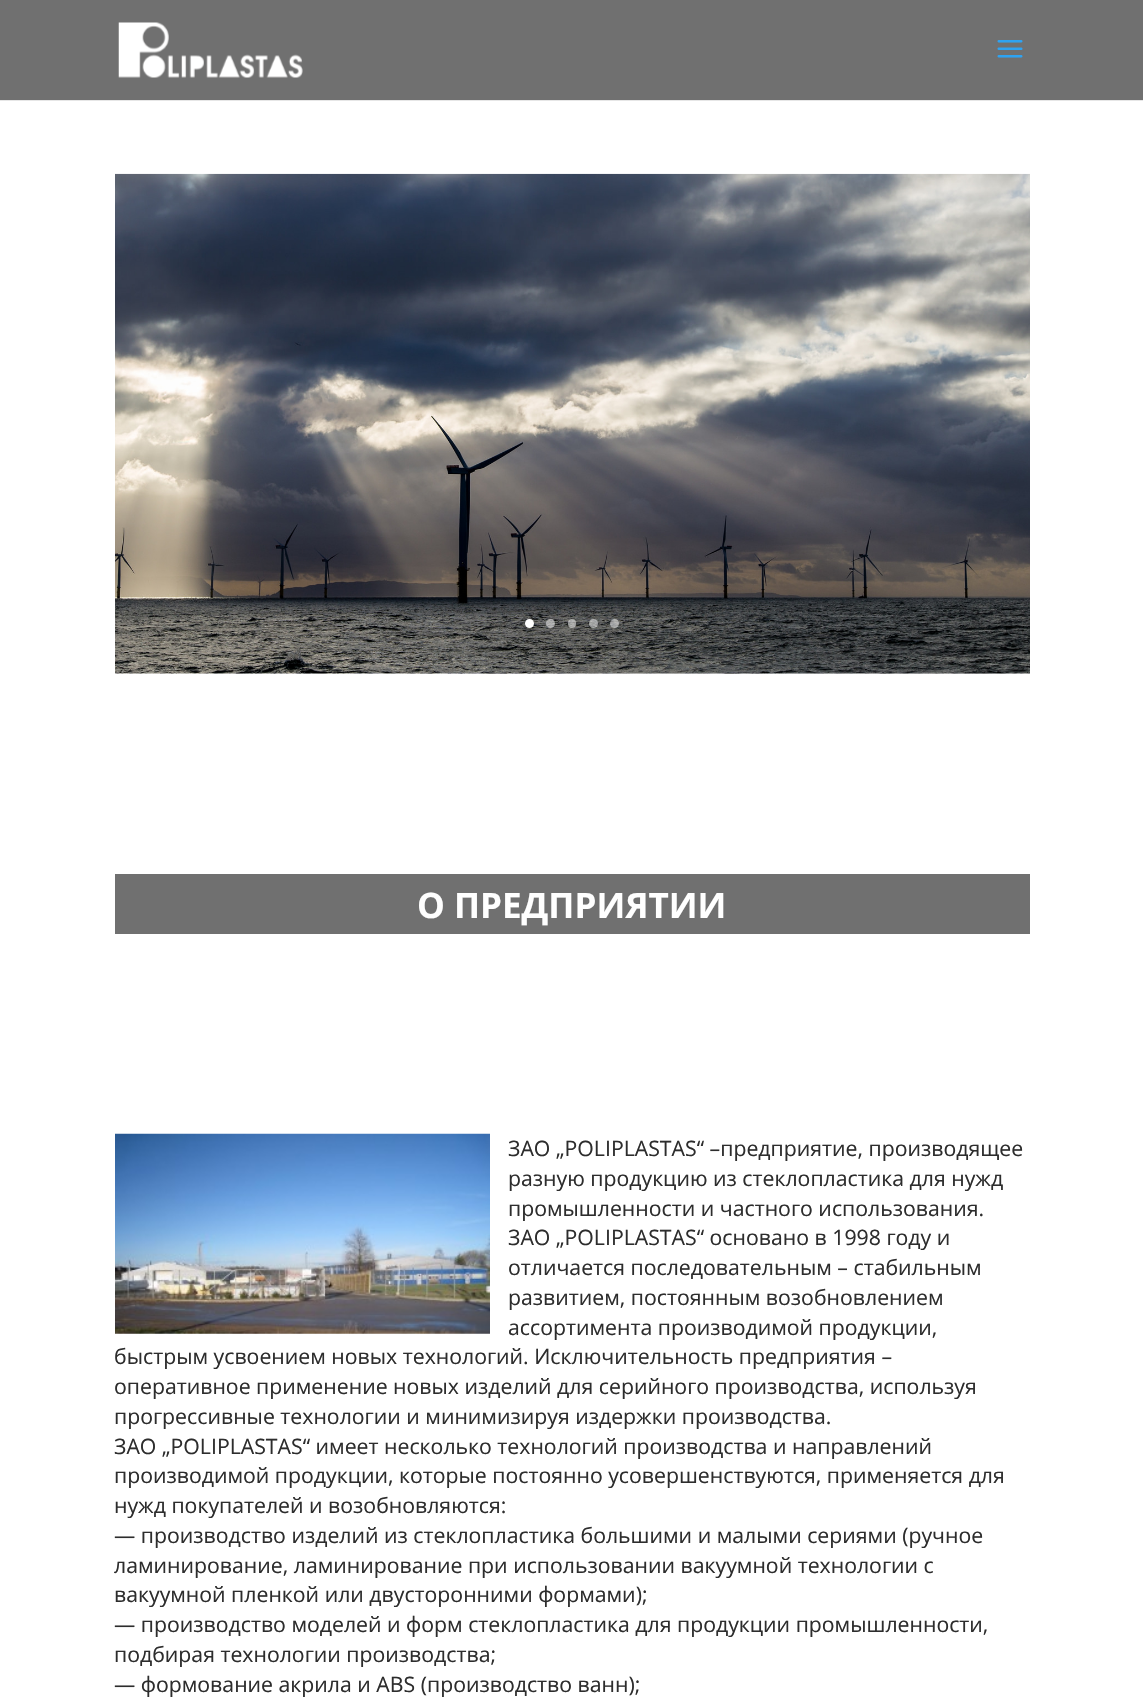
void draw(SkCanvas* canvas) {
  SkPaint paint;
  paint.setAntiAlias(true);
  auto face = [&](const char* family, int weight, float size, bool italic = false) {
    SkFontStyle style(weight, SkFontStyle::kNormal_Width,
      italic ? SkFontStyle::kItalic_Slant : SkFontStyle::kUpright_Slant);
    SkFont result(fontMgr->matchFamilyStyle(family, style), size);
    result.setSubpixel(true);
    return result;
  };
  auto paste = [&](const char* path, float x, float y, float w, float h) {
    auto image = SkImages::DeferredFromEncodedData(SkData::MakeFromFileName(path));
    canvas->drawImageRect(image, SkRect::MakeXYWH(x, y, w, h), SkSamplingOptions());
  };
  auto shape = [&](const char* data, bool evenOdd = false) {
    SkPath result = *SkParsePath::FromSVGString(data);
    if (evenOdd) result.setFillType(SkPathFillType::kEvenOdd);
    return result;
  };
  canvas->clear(0xffffffff);
  paint.setColor(0xffe6e6e6);
  canvas->drawPath(shape("M0 100V101H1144V1V100Z"), paint);
  paint.setColor(0xff707070);
  canvas->drawRect(SkRect::MakeXYWH(0, 0, 1143, 100), paint);
  paste("img/1.png", 118, 22, 185, 56);
  paste("img/2.png", 997, 40, 26, 18);
  paste("img/3.png", 115, 173, 915, 501);
  paint.setColor(0xffffffff);
  canvas->drawCircle(529.5f, 623.5f, 4.5f, paint);
  paint.setColor(0x80ffffff);
  canvas->drawCircle(550.5f, 623.5f, 4.5f, paint);
  canvas->drawRoundRect(SkRect::MakeXYWH(568, 619, 8, 9), 4, 4, paint);
  canvas->drawCircle(593.5f, 623.5f, 4.5f, paint);
  canvas->drawCircle(614.5f, 623.5f, 4.5f, paint);
  paint.setColor(0xff707070);
  canvas->drawRect(SkRect::MakeXYWH(115, 874, 915, 60), paint);
  paste("img/4.png", 115, 1133, 375, 201);
  auto f0 = face("Open Sans", 700, 35);
  paint.setColor(0xffffffff);
  canvas->drawString("О ПРЕДПРИЯТИИ", 417, 918, f0, paint);
  auto f1 = face("Open Sans", 400, 21.25f);
  paint.setColor(0xff2d2d2d);
  {
    const struct { const char* s; float x, y; } items[] = {
      {"ЗАО „POLIPLASTAS“ –предприятие, производящее", 508, 1156},
      {"разную продукцию из стеклопластика для нужд", 508, 1186},
      {"промышленности и частного использования.", 508, 1216},
      {"ЗАО „POLIPLASTAS“ основано в 1998 году и", 508, 1245},
      {"отличается последовательным – стабильным", 508, 1275},
      {"развитием, постоянным возобновлением", 508, 1305},
      {"ассортимента производимой продукции,", 508, 1335},
      {"быстрым усвоением новых технологий. Исключительность предприятия –", 114, 1364},
      {"оперативное применение новых изделий для серийного производства, используя", 114, 1394},
      {"прогрессивные технологии и минимизируя издержки производства.", 114, 1424},
      {"ЗАО „POLIPLASTAS“ имеет несколько технологий производства и направлений", 114, 1454},
      {"производимой продукции, которые постоянно усовершенствуются, применяется для", 114, 1483},
      {"нужд покупателей и возобновляются:", 114, 1513},
      {"— производство изделий из стеклопластика большими и малыми сериями (ручное", 114, 1543},
      {"ламинирование, ламинирование при использовании вакуумной технологии с", 114, 1573},
      {"вакуумной пленкой или двусторонними формами);", 114, 1602},
      {"— производство моделей и форм стеклопластика для продукции промышленности,", 114, 1632},
      {"подбирая технологии производства;", 114, 1662},
      {"— формование акрила и ABS (производство ванн);", 114, 1692},
    };
    for (auto [s, x, y] : items) {
      canvas->drawString(s, x, y, f1, paint);
    }
  }
}
